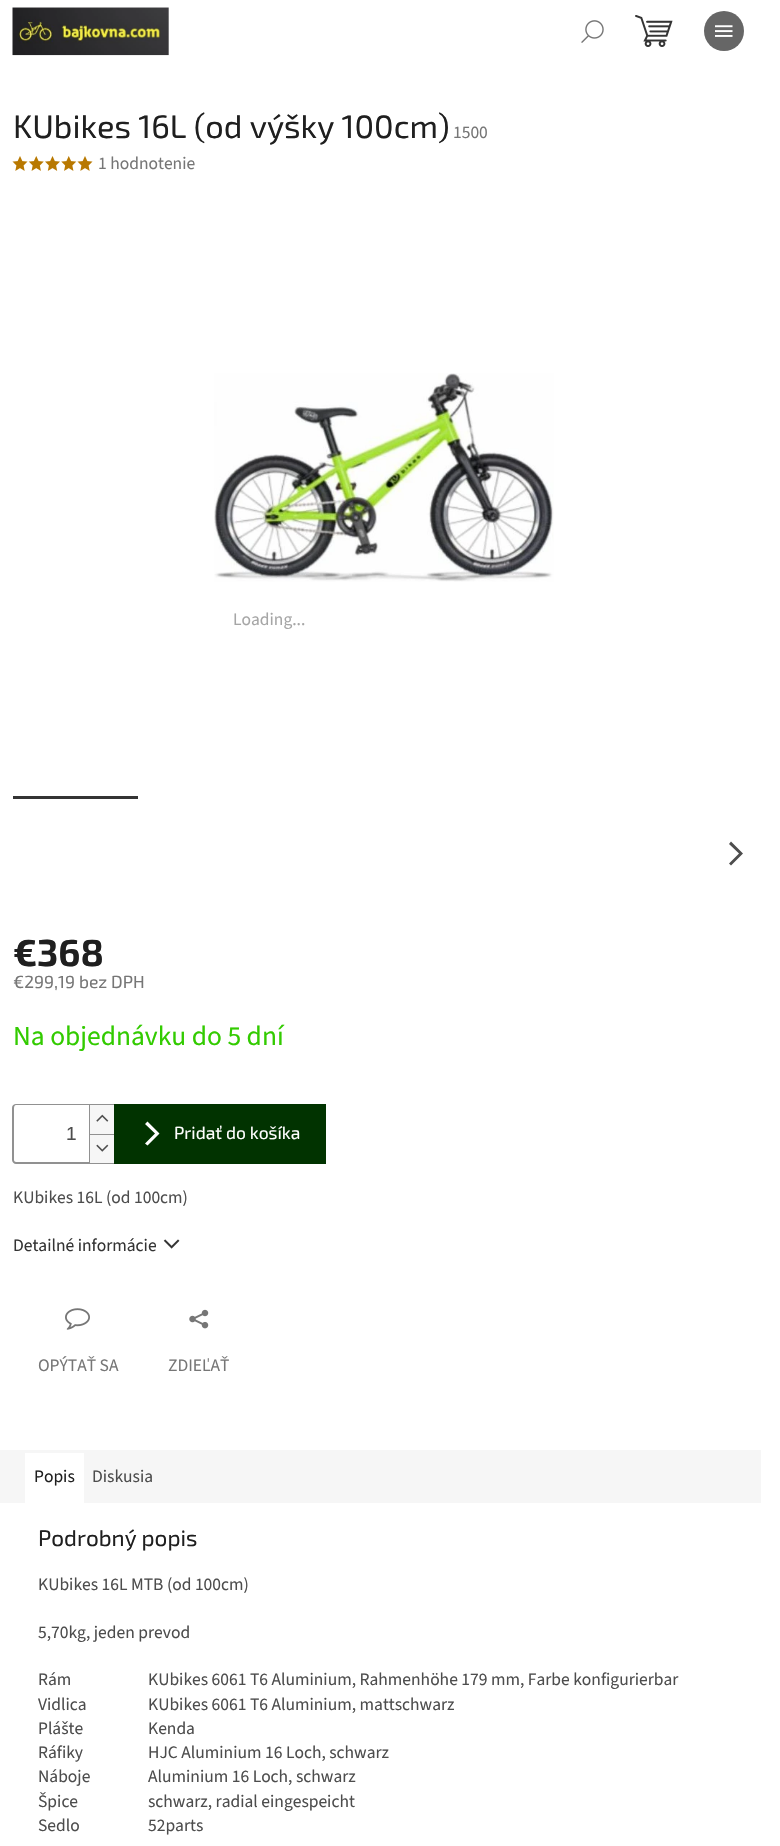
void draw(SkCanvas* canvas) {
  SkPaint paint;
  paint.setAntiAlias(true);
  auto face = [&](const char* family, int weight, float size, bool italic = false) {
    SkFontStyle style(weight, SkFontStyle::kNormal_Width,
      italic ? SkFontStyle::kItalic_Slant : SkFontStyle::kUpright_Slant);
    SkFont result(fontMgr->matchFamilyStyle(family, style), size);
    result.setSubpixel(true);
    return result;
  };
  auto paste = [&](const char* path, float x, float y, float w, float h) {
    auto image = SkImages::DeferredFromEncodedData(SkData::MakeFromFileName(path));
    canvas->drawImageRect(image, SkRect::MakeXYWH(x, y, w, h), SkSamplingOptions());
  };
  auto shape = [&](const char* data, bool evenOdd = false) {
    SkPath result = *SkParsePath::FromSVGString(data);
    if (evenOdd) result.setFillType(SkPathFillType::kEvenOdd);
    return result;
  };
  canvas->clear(0xffffffff);
  paste("img/1.png", 12, 7, 157, 49);
  paste("img/2.png", 635, 15, 38, 32);
  paste("img/3.png", 581, 20, 23, 23);
  paint.setColor(0xff666666);
  canvas->drawCircle(724, 31, 20, paint);
  paste("img/4.png", 715, 25, 18, 12);
  paste("img/5.png", 12, 156, 16, 15);
  paste("img/6.png", 28, 156, 16, 15);
  paste("img/7.png", 45, 156, 15, 15);
  paste("img/8.png", 61, 156, 16, 15);
  paste("img/5.png", 77, 156, 16, 15);
  paste("img/9.png", 214, 373, 340, 209);
  paint.setColor(0xff343434);
  canvas->drawRect(SkRect::MakeXYWH(13, 796, 125, 3), paint);
  paint.setColor(0xff4d4d4d);
  canvas->drawPath(shape("M731 865.5L729 863.5L739 853.5L729 844L731 841.5L743 853.5Z"), paint);
  paint.setColor(0xff919191);
  canvas->drawPath(shape("M16 1104H114V1164H16C14 1164 12 1162 12 1160V1108C12 1105 14 1104 16 1104ZM16 1105H114V1162H16C15 1162 14 1161 14 1160V1108C14 1106 15 1105 16 1105Z", true), paint);
  paint.setColor(0xfff6f6f6);
  canvas->drawRect(SkRect::MakeXYWH(90, 1105, 24, 29), paint);
  paint.setColor(0xff919191);
  canvas->drawRect(SkRect::MakeXYWH(89, 1105, 1, 29), paint);
  paste("img/10.png", 96, 1114, 13, 8);
  {
    const struct { float x, y, w, h; SkColor color; } items[] = {
      {90, 1135, 24, 28, 0xfff6f6f6},
      {89, 1134, 25, 1, 0xff919191},
      {89, 1134, 1, 29, 0xff919191},
    };
    for (auto [x, y, w, h, color] : items) {
      paint.setColor(color);
      canvas->drawRect(SkRect::MakeXYWH(x, y, w, h), paint);
    }
  }
  paste("img/11.png", 96, 1144, 13, 8);
  paint.setColor(0xff013300);
  canvas->drawRect(SkRect::MakeXYWH(114, 1104, 212, 60), paint);
  paint.setColor(0xffffffff);
  canvas->drawPath(shape("M147.5 1145.5L145 1143.5L155 1133.5L145 1124L147.5 1121.5L159.5 1133.5Z"), paint);
  paste("img/12.png", 163, 1239, 17, 10);
  paste("img/13.png", 65, 1308, 25, 22);
  paste("img/14.png", 189, 1309, 20, 20);
  paint.setColor(0xfff6f6f6);
  canvas->drawRect(SkRect::MakeXYWH(0, 1450, 761, 53), paint);
  paint.setColor(0xffffffff);
  canvas->drawRect(SkRect::MakeXYWH(25, 1453, 59, 50), paint);
  auto f0 = face("Exo 2", 400, 32.5f);
  paint.setColor(0xff1f1f1f);
  canvas->drawString("KUbikes 16L (od výšky 100cm)", 13, 138, f0, paint);
  auto f1 = face("Source Sans 3", 400, 17.5f);
  paint.setColor(0xff767676);
  canvas->drawString("1500", 453, 138, f1, paint);
  canvas->drawString("1 hodnotenie", 98, 169, f1, paint);
  paint.setColor(0xffa6a6a6);
  canvas->drawString("Loading...", 233, 625, f1, paint);
  auto f2 = face("Exo 2", 700, 37.5f);
  paint.setColor(0xff1f1f1f);
  canvas->drawString("€368", 13, 966, f2, paint);
  auto f3 = face("Exo 2", 400, 17.5f);
  paint.setColor(0xff767676);
  canvas->drawString("€299,19 bez DPH", 13, 988, f3, paint);
  auto f4 = face("Source Sans 3", 400, 27.5f);
  paint.setColor(0xff32cb00);
  canvas->drawString("Na objednávku do 5 dní", 13, 1045, f4, paint);
  auto f5 = face("Liberation Sans", 400, 19);
  paint.setColor(0xff4d4d4d);
  canvas->drawString("1", 66, 1140, f5, paint);
  paint.setColor(0xffffffff);
  canvas->drawString("Pridať do košíka", 174, 1139, f3, paint);
  paint.setColor(0xff4d4d4d);
  canvas->drawString("KUbikes 16L (od 100cm)", 13, 1203, f1, paint);
  paint.setColor(0xff343434);
  canvas->drawString("Detailné informácie", 13, 1251, f1, paint);
  paint.setColor(0xff767676);
  canvas->drawString("OPÝTAŤ SA", 38, 1371, f1, paint);
  canvas->drawString("ZDIEĽAŤ", 168, 1371, f1, paint);
  paint.setColor(0xff1f1f1f);
  canvas->drawString("Popis", 34, 1482, f1, paint);
  paint.setColor(0xff4d4d4d);
  canvas->drawString("Diskusia", 92, 1482, f1, paint);
  auto f6 = face("Exo 2", 400, 22.5f);
  paint.setColor(0xff1f1f1f);
  canvas->drawString("Podrobný popis", 38, 1546, f6, paint);
  paint.setColor(0xff4d4d4d);
  {
    const struct { const char* s; float x, y; } items[] = {
      {"KUbikes 16L MTB (od 100cm)", 38, 1590},
      {"5,70kg, jeden prevod", 38, 1638},
      {"Rám", 38, 1685},
      {"KUbikes 6061 T6 Aluminium, Rahmenhöhe 179 mm, Farbe konfigurierbar", 148, 1685},
      {"Vidlica", 38, 1710},
      {"KUbikes 6061 T6 Aluminium, mattschwarz", 148, 1710},
      {"Plášte", 38, 1734},
      {"Kenda", 148, 1734},
      {"Ráfiky", 38, 1758},
      {"HJC Aluminium 16 Loch, schwarz", 148, 1758},
      {"Náboje", 38, 1782},
      {"Aluminium 16 Loch, schwarz", 148, 1782},
      {"Špice", 38, 1807},
      {"schwarz, radial eingespeicht", 148, 1807},
      {"Sedlo", 38, 1831},
      {"52parts", 148, 1831},
    };
    for (auto [s, x, y] : items) {
      canvas->drawString(s, x, y, f1, paint);
    }
  }
}
